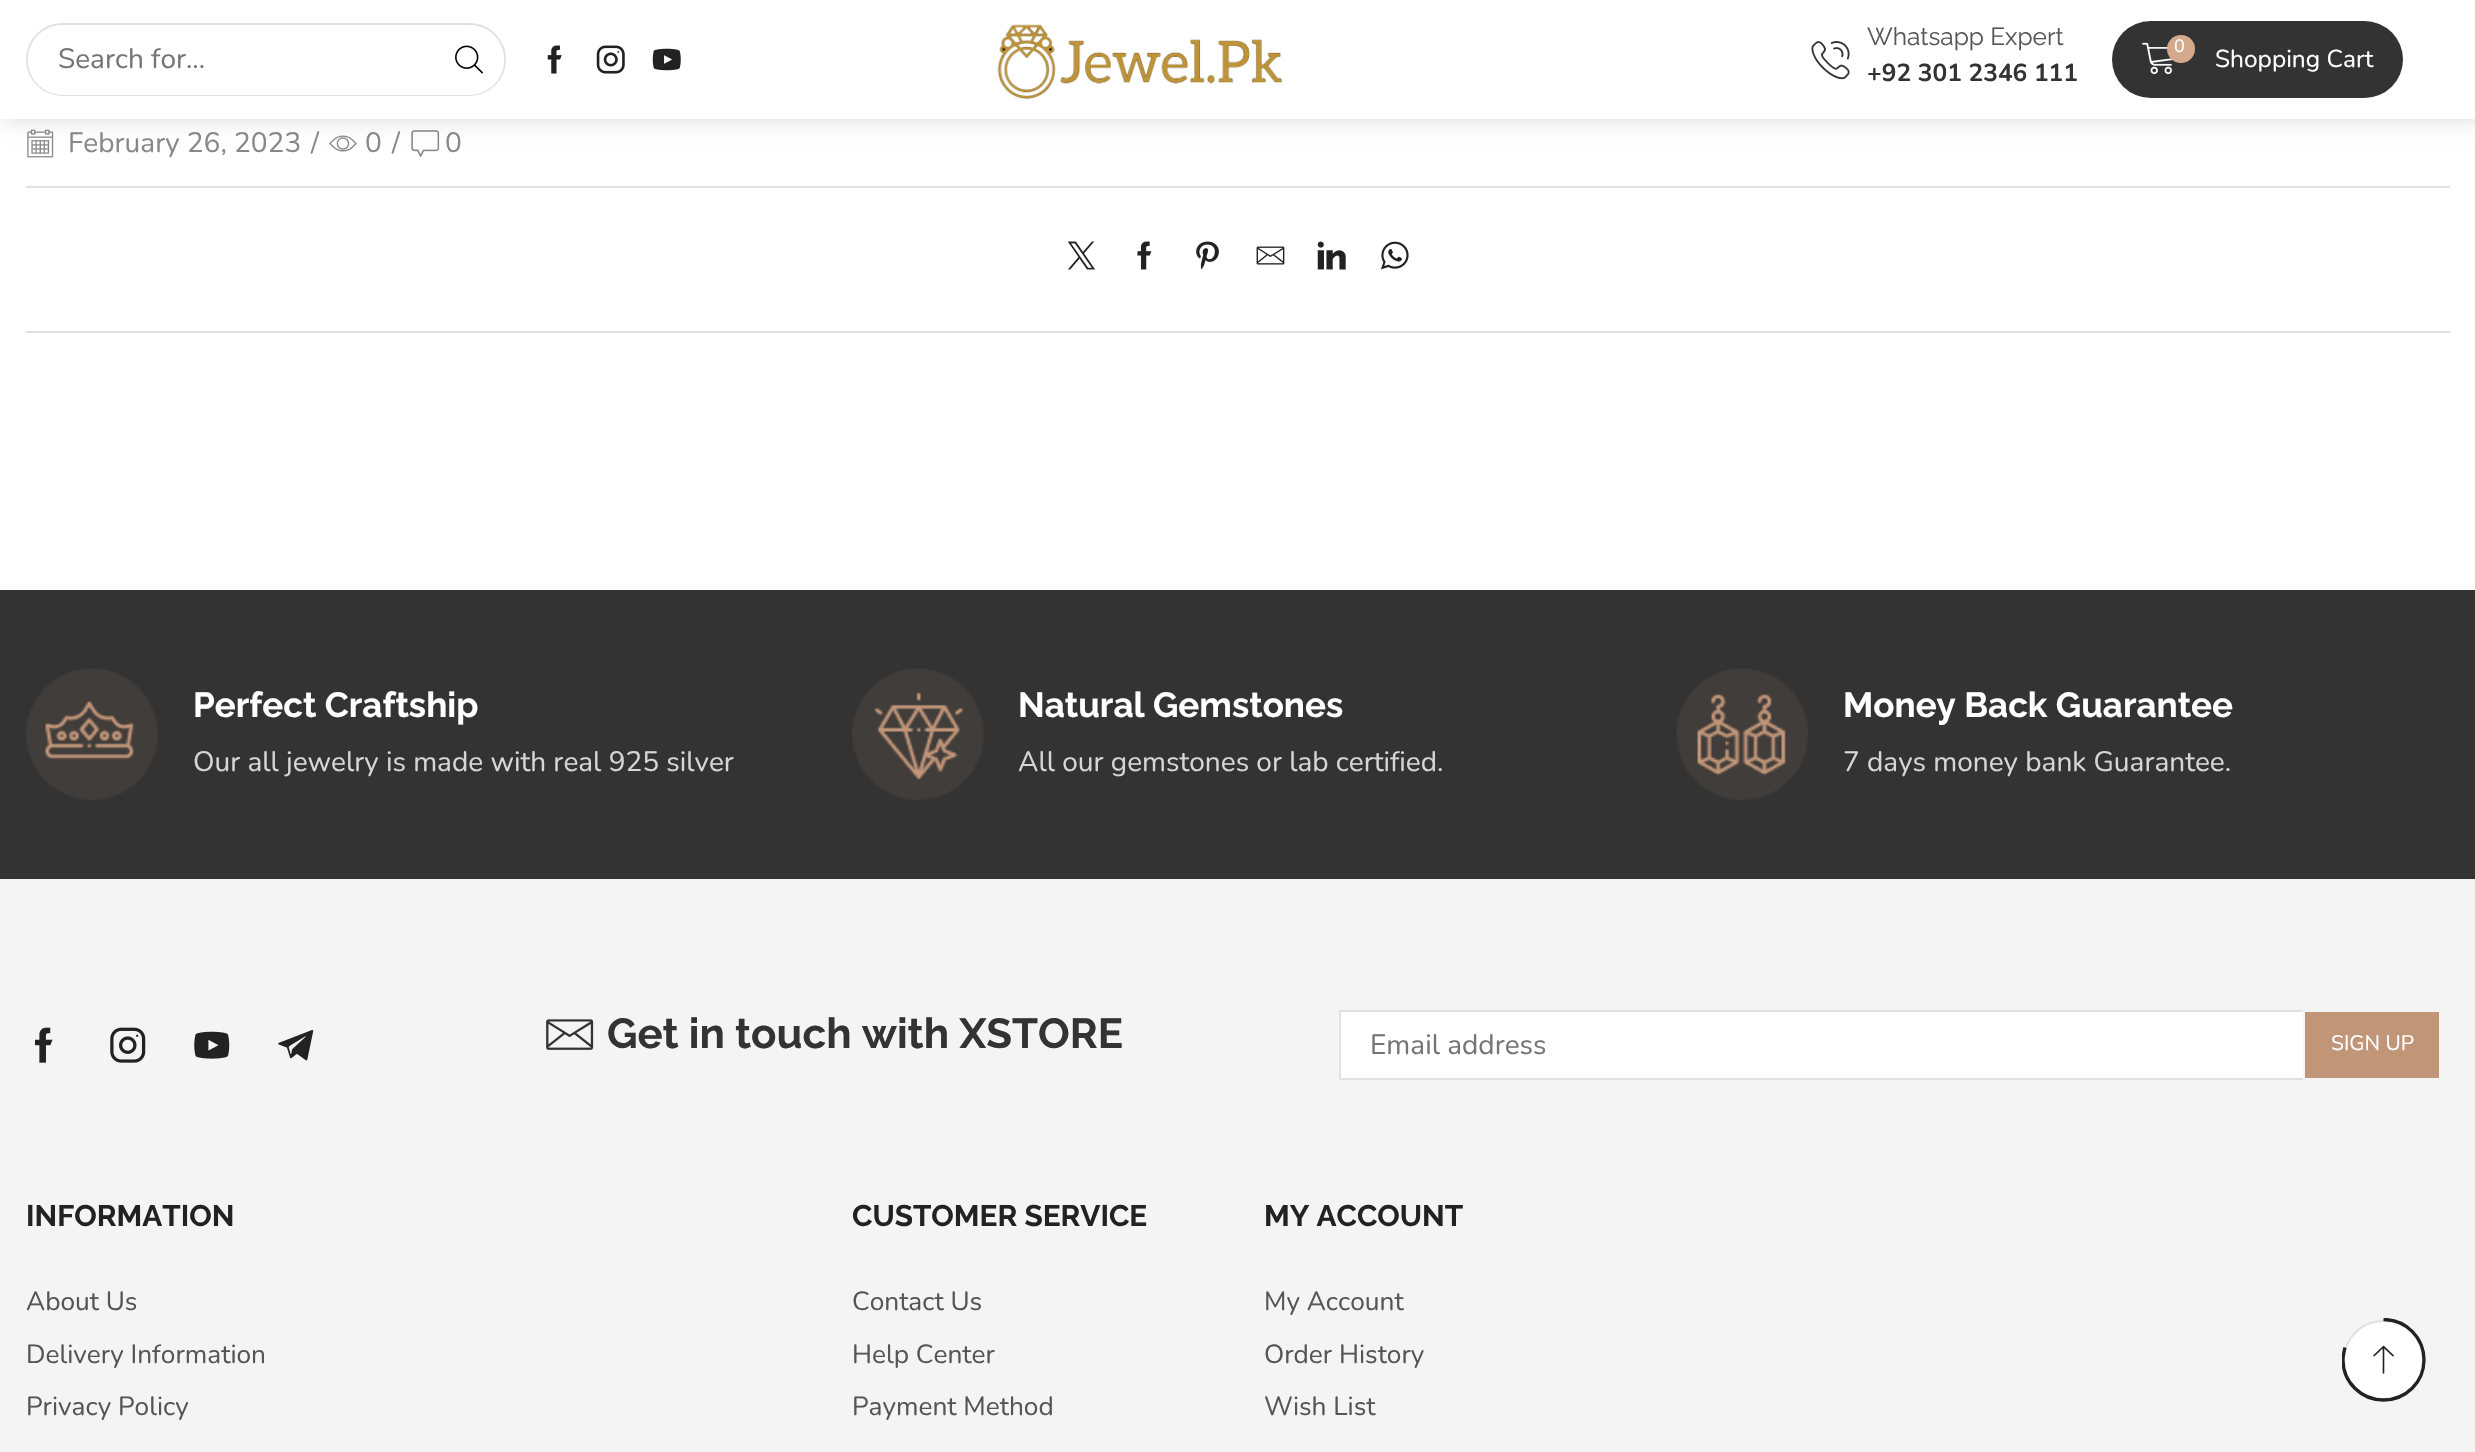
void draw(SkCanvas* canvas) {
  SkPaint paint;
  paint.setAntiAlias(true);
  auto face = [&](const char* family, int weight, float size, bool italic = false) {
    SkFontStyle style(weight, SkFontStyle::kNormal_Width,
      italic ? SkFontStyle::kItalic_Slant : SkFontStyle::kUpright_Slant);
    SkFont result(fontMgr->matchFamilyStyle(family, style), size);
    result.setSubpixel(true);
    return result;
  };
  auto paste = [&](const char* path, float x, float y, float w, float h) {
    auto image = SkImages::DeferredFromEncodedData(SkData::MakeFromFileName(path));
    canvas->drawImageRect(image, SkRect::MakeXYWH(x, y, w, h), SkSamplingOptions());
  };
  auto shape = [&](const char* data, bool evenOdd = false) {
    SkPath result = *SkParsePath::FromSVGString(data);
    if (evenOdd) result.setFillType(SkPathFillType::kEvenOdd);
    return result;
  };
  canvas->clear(0xffffffff);
  paste("img/8.png", 27, 129, 27, 29);
  paste("img/9.png", 329, 135, 28, 17);
  paste("img/10.png", 411, 130, 29, 27);
  paint.setColor(0x26000000);
  paint.setMaskFilter(SkMaskFilter::MakeBlur(kNormal_SkBlurStyle, 10.5f));
  canvas->drawRect(SkRect::MakeXYWH(4, 0, 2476, 119), paint);
  paint.setMaskFilter(nullptr);
  paint.setColor(0xffffffff);
  canvas->drawRect(SkRect::MakeXYWH(0, 0, 2475, 119), paint);
  paint.setStroke(true);
  paint.setStrokeWidth(2);
  paint.setColor(0xffe1e1e1);
  canvas->drawRoundRect(SkRect::MakeXYWH(27, 24, 478, 71), 35.5f, 35.5f, paint);
  paint.setStroke(false);
  paint.setColor(0xffffffff);
  canvas->drawPath(shape("M63 25H434V95H63C43.5 95 28 79.5 28 60C28 40.5 43.5 25 63 25Z"), paint);
  canvas->drawPath(shape("M434 25H469C488.5 25 504 40.5 504 60C504 79.5 488.5 95 469 95H434Z"), paint);
  paste("img/1.png", 455, 45, 28, 29);
  paste("img/2.png", 547, 45, 15, 29);
  paste("img/3.png", 596, 45, 29, 29);
  paste("img/4.png", 652, 48, 29, 23);
  paste("img/5.png", 997, 24, 286, 75);
  paste("img/6.png", 1811, 41, 39, 39);
  paint.setColor(0xff333333);
  canvas->drawRoundRect(SkRect::MakeXYWH(2112, 21, 291, 77), 38.5f, 38.5f, paint);
  paste("img/7.png", 2142, 42, 31, 33);
  paint.setColor(0xffd4a98c);
  canvas->drawCircle(2181, 49, 14, paint);
  paint.setColor(0xffe1e1e1);
  canvas->drawRect(SkRect::MakeXYWH(26, 186, 2424, 2), paint);
  canvas->drawRect(SkRect::MakeXYWH(26, 331, 2424, 2), paint);
  paste("img/11.png", 1067, 241, 28, 29);
  paste("img/12.png", 1137, 241, 15, 29);
  paste("img/13.png", 1196, 241, 23, 29);
  paste("img/14.png", 1256, 246, 29, 19);
  paste("img/15.png", 1317, 241, 29, 29);
  paste("img/16.png", 1380, 241, 29, 29);
  paint.setColor(0xfff4f4f4);
  canvas->drawRect(SkRect::MakeXYWH(0, 879, 2475, 573), paint);
  paint.setColor(0xffffffff);
  canvas->drawRoundRect(SkRect::MakeXYWH(2344, 1321, 79, 78), 39, 39, paint);
  paint.setStroke(true);
  paint.setColor(0xffe1e1e1);
  canvas->drawRoundRect(SkRect::MakeXYWH(2344, 1321, 79, 78), 39, 39, paint);
  canvas->save();
  canvas->clipRect(SkRect::MakeXYWH(2342, 1318, 84, 84));
  paint.setStrokeWidth(3.3f);
  paint.setColor(0xff222222);
  canvas->drawPath(shape("M2383.5 1319.5C2406 1319.5 2424 1337.5 2424 1360C2424 1382 2406 1400 2383.5 1400C2361 1400 2343 1382 2343 1360C2343 1355.5 2344 1351.5 2345 1347.5"), paint);
  canvas->restore();
  paste("img/17.png", 2373, 1345, 21, 29);
  paint.setStroke(false);
  paint.setColor(0xff333333);
  canvas->drawRect(SkRect::MakeXYWH(0, 590, 2475, 289), paint);
  paste("img/18.png", 26, 668, 132, 132);
  paste("img/19.png", 852, 668, 132, 132);
  paste("img/20.png", 1676, 668, 132, 132);
  paste("img/21.png", 35, 1027, 18, 36);
  paste("img/22.png", 110, 1027, 36, 36);
  paste("img/23.png", 194, 1031, 36, 28);
  paste("img/24.png", 278, 1030, 36, 31);
  paste("img/25.png", 546, 1019, 48, 31);
  {
    const struct { float x, y, w, h; SkColor color; } items[] = {
      {1341, 1012, 962, 66, 0xffffffff},
      {1339, 1010, 964, 2, 0xffe1e1e1},
      {1339, 1078, 964, 2, 0xffe1e1e1},
      {1339, 1010, 2, 70, 0xffe1e1e1},
      {2305, 1012, 134, 66, 0xffc09578},
    };
    for (auto [x, y, w, h, color] : items) {
      paint.setColor(color);
      canvas->drawRect(SkRect::MakeXYWH(x, y, w, h), paint);
    }
  }
  auto f0 = face("Nunito", 400, 28);
  paint.setColor(0xff757575);
  canvas->drawString("Search for...", 58, 68, f0, paint);
  auto f1 = face("Raleway", 400, 24.5f);
  paint.setColor(0xff555555);
  canvas->drawString("Whatsapp Expert", 1867, 45, f1, paint);
  auto f2 = face("Nunito", 700, 24.5f);
  paint.setColor(0xff333333);
  canvas->drawString("+92 301 2346 111", 1867, 81, f2, paint);
  auto f3 = face("Nunito", 400, 18);
  paint.setColor(0xffffffff);
  canvas->drawString("0", 2174, 52, f3, paint);
  auto f4 = face("Nunito", 400, 24.5f);
  canvas->drawString("Shopping Cart", 2215, 67, f4, paint);
  paint.setColor(0xff888888);
  {
    const struct { const char* s; float x, y; } items[] = {
      {"February 26, 2023", 68, 152},
      {"/", 311, 152},
      {"0", 365, 152},
      {"/", 392, 152},
      {"0", 445, 152},
    };
    for (auto [s, x, y] : items) {
      canvas->drawString(s, x, y, f0, paint);
    }
  }
  auto f5 = face("Raleway", 700, 35);
  paint.setColor(0xffffffff);
  canvas->drawString("Perfect Craftship", 193, 717, f5, paint);
  paint.setColor(0xffd6d6d6);
  canvas->drawString("Our all jewelry is made with real 925 silver", 193, 771, f0, paint);
  paint.setColor(0xffffffff);
  canvas->drawString("Natural Gemstones", 1018, 717, f5, paint);
  paint.setColor(0xffd6d6d6);
  canvas->drawString("All our gemstones or lab certified.", 1018, 771, f0, paint);
  paint.setColor(0xffffffff);
  canvas->drawString("Money Back Guarantee", 1843, 717, f5, paint);
  paint.setColor(0xffd6d6d6);
  canvas->drawString("7 days money bank Guarantee.", 1843, 771, f0, paint);
  auto f6 = face("Raleway", 700, 42);
  paint.setColor(0xff333333);
  canvas->drawString("Get in touch with XSTORE", 607, 1048, f6, paint);
  paint.setColor(0xff757575);
  canvas->drawString("Email address", 1370, 1054, f0, paint);
  auto f7 = face("Nunito", 400, 21);
  paint.setColor(0xffffffff);
  canvas->drawString("SIGN UP", 2331, 1050, f7, paint);
  auto f8 = face("Raleway", 700, 29.75f);
  paint.setColor(0xff222222);
  canvas->drawString("INFORMATION", 26, 1226, f8, paint);
  auto f9 = face("Nunito", 400, 26.25f);
  paint.setColor(0xff555555);
  {
    const struct { const char* s; float x, y; } items[] = {
      {"About Us", 26, 1310},
      {"Delivery Information", 26, 1363},
      {"Privacy Policy", 26, 1415},
    };
    for (auto [s, x, y] : items) {
      canvas->drawString(s, x, y, f9, paint);
    }
  }
  paint.setColor(0xff222222);
  canvas->drawString("CUSTOMER SERVICE", 852, 1226, f8, paint);
  paint.setColor(0xff555555);
  {
    const struct { const char* s; float x, y; } items[] = {
      {"Contact Us", 852, 1310},
      {"Help Center", 852, 1363},
      {"Payment Method", 852, 1415},
    };
    for (auto [s, x, y] : items) {
      canvas->drawString(s, x, y, f9, paint);
    }
  }
  paint.setColor(0xff222222);
  canvas->drawString("MY ACCOUNT", 1264, 1226, f8, paint);
  paint.setColor(0xff555555);
  {
    const struct { const char* s; float x, y; } items[] = {
      {"My Account", 1264, 1310},
      {"Order History", 1264, 1363},
      {"Wish List", 1264, 1415},
    };
    for (auto [s, x, y] : items) {
      canvas->drawString(s, x, y, f9, paint);
    }
  }
}
